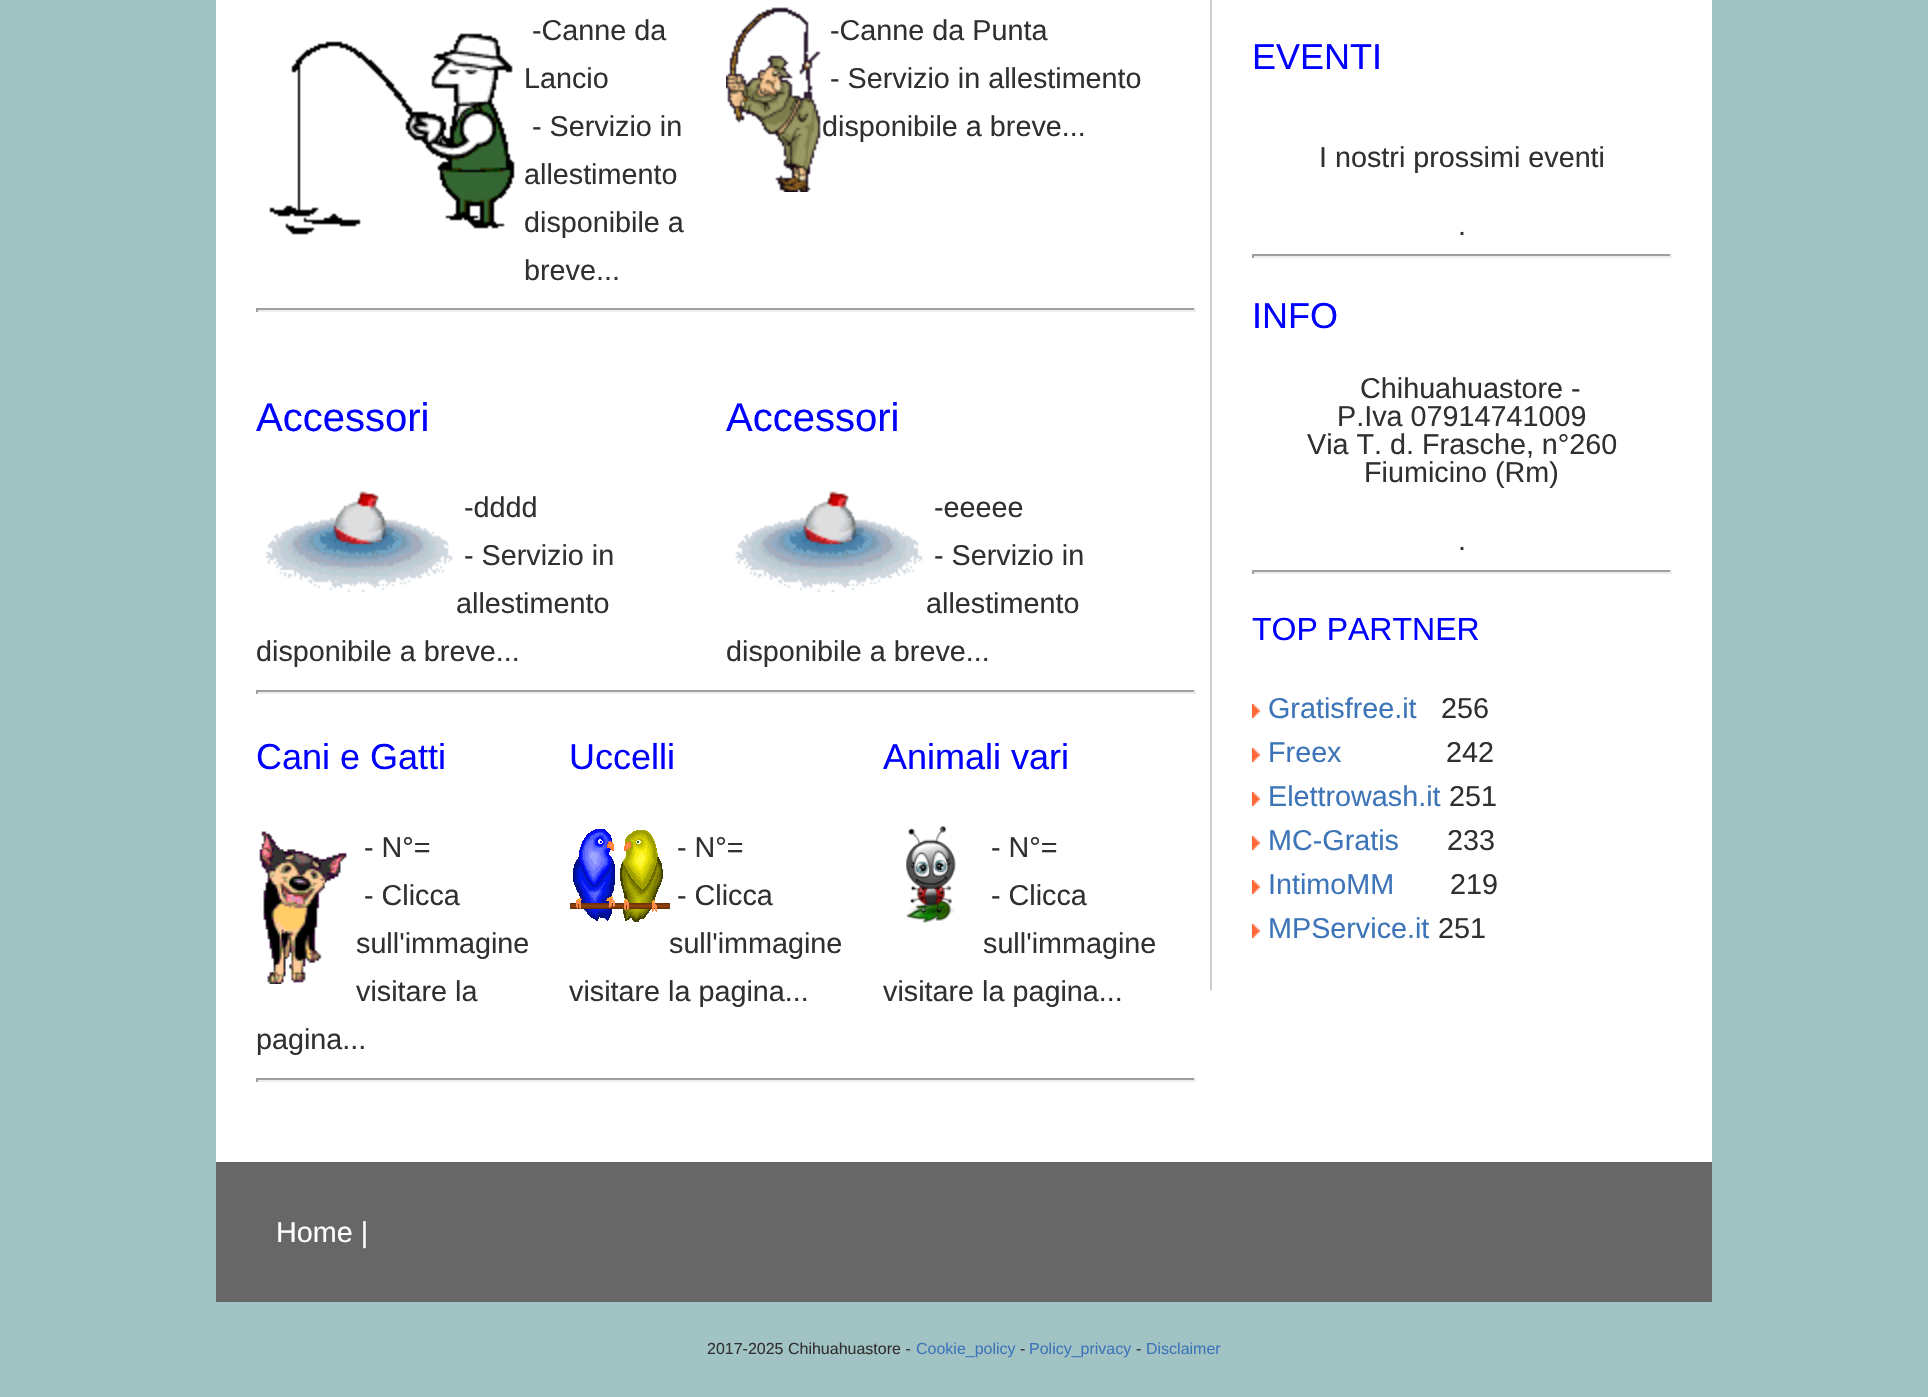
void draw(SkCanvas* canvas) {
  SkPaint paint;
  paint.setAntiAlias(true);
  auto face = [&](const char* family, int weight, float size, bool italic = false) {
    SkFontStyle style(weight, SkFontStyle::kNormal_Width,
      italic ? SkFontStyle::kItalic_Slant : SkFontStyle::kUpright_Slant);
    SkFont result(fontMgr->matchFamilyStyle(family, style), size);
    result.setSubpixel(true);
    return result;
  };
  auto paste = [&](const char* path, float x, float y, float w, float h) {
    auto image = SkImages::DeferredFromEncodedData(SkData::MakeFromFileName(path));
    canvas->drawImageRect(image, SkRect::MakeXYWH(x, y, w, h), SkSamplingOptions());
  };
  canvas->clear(0xffa2c3c3);
  paint.setColor(0xffffffff);
  canvas->drawRect(SkRect::MakeXYWH(216, 0, 1496, 1162), paint);
  paste("img/1.png", 269, 33, 246, 202);
  paste("img/2.png", 726, 7, 95, 185);
  {
    const struct { float x, y, w, h; SkColor color; } items[] = {
      {256, 308, 940, 2, 0xff9f9f9f},
      {1194, 308, 2, 4, 0xffeeeeee},
      {256, 310, 940, 2, 0xffeeeeee},
      {256, 308, 2, 4, 0xff9f9f9f},
    };
    for (auto [x, y, w, h, color] : items) {
      paint.setColor(color);
      canvas->drawRect(SkRect::MakeXYWH(x, y, w, h), paint);
    }
  }
  paste("img/3.png", 265, 491, 188, 101);
  paste("img/3.png", 735, 491, 188, 101);
  {
    const struct { float x, y, w, h; SkColor color; } items[] = {
      {256, 690, 940, 2, 0xff9f9f9f},
      {1194, 690, 2, 4, 0xffeeeeee},
      {256, 692, 940, 2, 0xffeeeeee},
      {256, 690, 2, 4, 0xff9f9f9f},
    };
    for (auto [x, y, w, h, color] : items) {
      paint.setColor(color);
      canvas->drawRect(SkRect::MakeXYWH(x, y, w, h), paint);
    }
  }
  paste("img/4.png", 259, 831, 88, 153);
  paste("img/5.png", 570, 829, 100, 93);
  paste("img/6.png", 905, 826, 51, 97);
  {
    const struct { float x, y, w, h; SkColor color; } items[] = {
      {256, 1078, 940, 2, 0xff9f9f9f},
      {1194, 1078, 2, 4, 0xffeeeeee},
      {256, 1080, 940, 2, 0xffeeeeee},
      {256, 1078, 2, 4, 0xff9f9f9f},
      {1210, 0, 2, 990, 0xffcccccc},
      {1252, 254, 420, 2, 0xff9f9f9f},
      {1670, 254, 2, 4, 0xffeeeeee},
      {1252, 256, 420, 2, 0xffeeeeee},
      {1252, 254, 2, 4, 0xff9f9f9f},
      {1252, 570, 420, 2, 0xff9f9f9f},
      {1670, 570, 2, 4, 0xffeeeeee},
      {1252, 572, 420, 2, 0xffeeeeee},
      {1252, 570, 2, 4, 0xff9f9f9f},
    };
    for (auto [x, y, w, h, color] : items) {
      paint.setColor(color);
      canvas->drawRect(SkRect::MakeXYWH(x, y, w, h), paint);
    }
  }
  paste("img/7.png", 1252, 704, 8, 14);
  paste("img/7.png", 1252, 748, 8, 14);
  paste("img/7.png", 1252, 792, 8, 14);
  paste("img/7.png", 1252, 836, 8, 14);
  paste("img/7.png", 1252, 880, 8, 14);
  paste("img/7.png", 1252, 924, 8, 14);
  paint.setColor(0xff676767);
  canvas->drawRect(SkRect::MakeXYWH(216, 1162, 1496, 140), paint);
  auto f0 = face("Liberation Sans", 400, 28.75f);
  paint.setColor(0xff303030);
  {
    const struct { const char* s; float x, y; } items[] = {
      {"-Canne da", 532, 40},
      {"Lancio", 524, 88},
      {"- Servizio in", 532, 136},
      {"allestimento", 524, 184},
      {"disponibile a", 524, 232},
      {"breve...", 524, 280},
      {"-Canne da Punta", 830, 40},
      {"- Servizio in allestimento", 830, 88},
      {"disponibile a breve...", 822, 136},
    };
    for (auto [s, x, y] : items) {
      canvas->drawString(s, x, y, f0, paint);
    }
  }
  auto f1 = face("Liberation Sans", 400, 40);
  paint.setColor(0xff0000ff);
  canvas->drawString("Accessori", 256, 431, f1, paint);
  paint.setColor(0xff303030);
  {
    const struct { const char* s; float x, y; } items[] = {
      {"-dddd", 464, 517},
      {"- Servizio in", 464, 565},
      {"allestimento", 456, 613},
      {"disponibile a breve...", 256, 661},
    };
    for (auto [s, x, y] : items) {
      canvas->drawString(s, x, y, f0, paint);
    }
  }
  paint.setColor(0xff0000ff);
  canvas->drawString("Accessori", 726, 431, f1, paint);
  paint.setColor(0xff303030);
  {
    const struct { const char* s; float x, y; } items[] = {
      {"-eeeee", 934, 517},
      {"- Servizio in", 934, 565},
      {"allestimento", 926, 613},
      {"disponibile a breve...", 726, 661},
    };
    for (auto [s, x, y] : items) {
      canvas->drawString(s, x, y, f0, paint);
    }
  }
  auto f2 = face("Liberation Sans", 400, 36);
  paint.setColor(0xff0000ff);
  canvas->drawString("Cani e Gatti", 256, 769, f2, paint);
  paint.setColor(0xff303030);
  {
    const struct { const char* s; float x, y; } items[] = {
      {"- N°=", 364, 857},
      {"- Clicca", 364, 905},
      {"sull'immagine", 356, 953},
      {"visitare la", 356, 1001},
      {"pagina...", 256, 1049},
    };
    for (auto [s, x, y] : items) {
      canvas->drawString(s, x, y, f0, paint);
    }
  }
  paint.setColor(0xff0000ff);
  canvas->drawString("Uccelli", 569, 769, f2, paint);
  paint.setColor(0xff303030);
  {
    const struct { const char* s; float x, y; } items[] = {
      {"- N°=", 677, 857},
      {"- Clicca", 677, 905},
      {"sull'immagine", 669, 953},
      {"visitare la pagina...", 569, 1001},
    };
    for (auto [s, x, y] : items) {
      canvas->drawString(s, x, y, f0, paint);
    }
  }
  paint.setColor(0xff0000ff);
  canvas->drawString("Animali vari", 883, 769, f2, paint);
  paint.setColor(0xff303030);
  {
    const struct { const char* s; float x, y; } items[] = {
      {"- N°=", 991, 857},
      {"- Clicca", 991, 905},
      {"sull'immagine", 983, 953},
      {"visitare la pagina...", 883, 1001},
    };
    for (auto [s, x, y] : items) {
      canvas->drawString(s, x, y, f0, paint);
    }
  }
  paint.setColor(0xff0000ff);
  canvas->drawString("EVENTI", 1252, 69, f2, paint);
  paint.setColor(0xff303030);
  canvas->drawString("I nostri prossimi eventi", 1319, 167, f0, paint);
  canvas->drawString(".", 1458, 235, f0, paint);
  paint.setColor(0xff0000ff);
  canvas->drawString("INFO", 1252, 328, f2, paint);
  paint.setColor(0xff303030);
  {
    const struct { const char* s; float x, y; } items[] = {
      {"Chihuahuastore -", 1360, 398},
      {"P.Iva 07914741009", 1337, 426},
      {"Via T. d. Frasche, n°260", 1307, 454},
      {"Fiumicino (Rm)", 1364, 482},
      {".", 1458, 550},
    };
    for (auto [s, x, y] : items) {
      canvas->drawString(s, x, y, f0, paint);
    }
  }
  auto f3 = face("Liberation Sans", 400, 32);
  paint.setColor(0xff0000ff);
  canvas->drawString("TOP PARTNER", 1252, 640, f3, paint);
  paint.setColor(0xff3e75b9);
  canvas->drawString("Gratisfree.it", 1268, 718, f0, paint);
  paint.setColor(0xff303030);
  canvas->drawString("256", 1441, 718, f0, paint);
  paint.setColor(0xff3e75b9);
  canvas->drawString("Freex", 1268, 762, f0, paint);
  paint.setColor(0xff303030);
  canvas->drawString("242", 1446, 762, f0, paint);
  paint.setColor(0xff3e75b9);
  canvas->drawString("Elettrowash.it", 1268, 806, f0, paint);
  paint.setColor(0xff303030);
  canvas->drawString("251", 1449, 806, f0, paint);
  paint.setColor(0xff3e75b9);
  canvas->drawString("MC-Gratis", 1268, 850, f0, paint);
  paint.setColor(0xff303030);
  canvas->drawString("233", 1447, 850, f0, paint);
  paint.setColor(0xff3e75b9);
  canvas->drawString("IntimoMM", 1268, 894, f0, paint);
  paint.setColor(0xff303030);
  canvas->drawString("219", 1450, 894, f0, paint);
  paint.setColor(0xff3e75b9);
  canvas->drawString("MPService.it", 1268, 938, f0, paint);
  paint.setColor(0xff303030);
  canvas->drawString("251", 1438, 938, f0, paint);
  paint.setColor(0xffffffff);
  canvas->drawString("Home |", 276, 1242, f0, paint);
  auto f4 = face("Liberation Sans", 400, 16);
  paint.setColor(0xff303030);
  canvas->drawString("2017-2025 Chihuahuastore -", 707, 1354, f4, paint);
  paint.setColor(0xff3e75b9);
  canvas->drawString("Cookie_policy", 916, 1354, f4, paint);
  paint.setColor(0xff303030);
  canvas->drawString("-", 1020, 1354, f4, paint);
  paint.setColor(0xff3e75b9);
  canvas->drawString("Policy_privacy", 1029, 1354, f4, paint);
  paint.setColor(0xff303030);
  canvas->drawString("-", 1136, 1354, f4, paint);
  paint.setColor(0xff3e75b9);
  canvas->drawString("Disclaimer", 1146, 1354, f4, paint);
}
